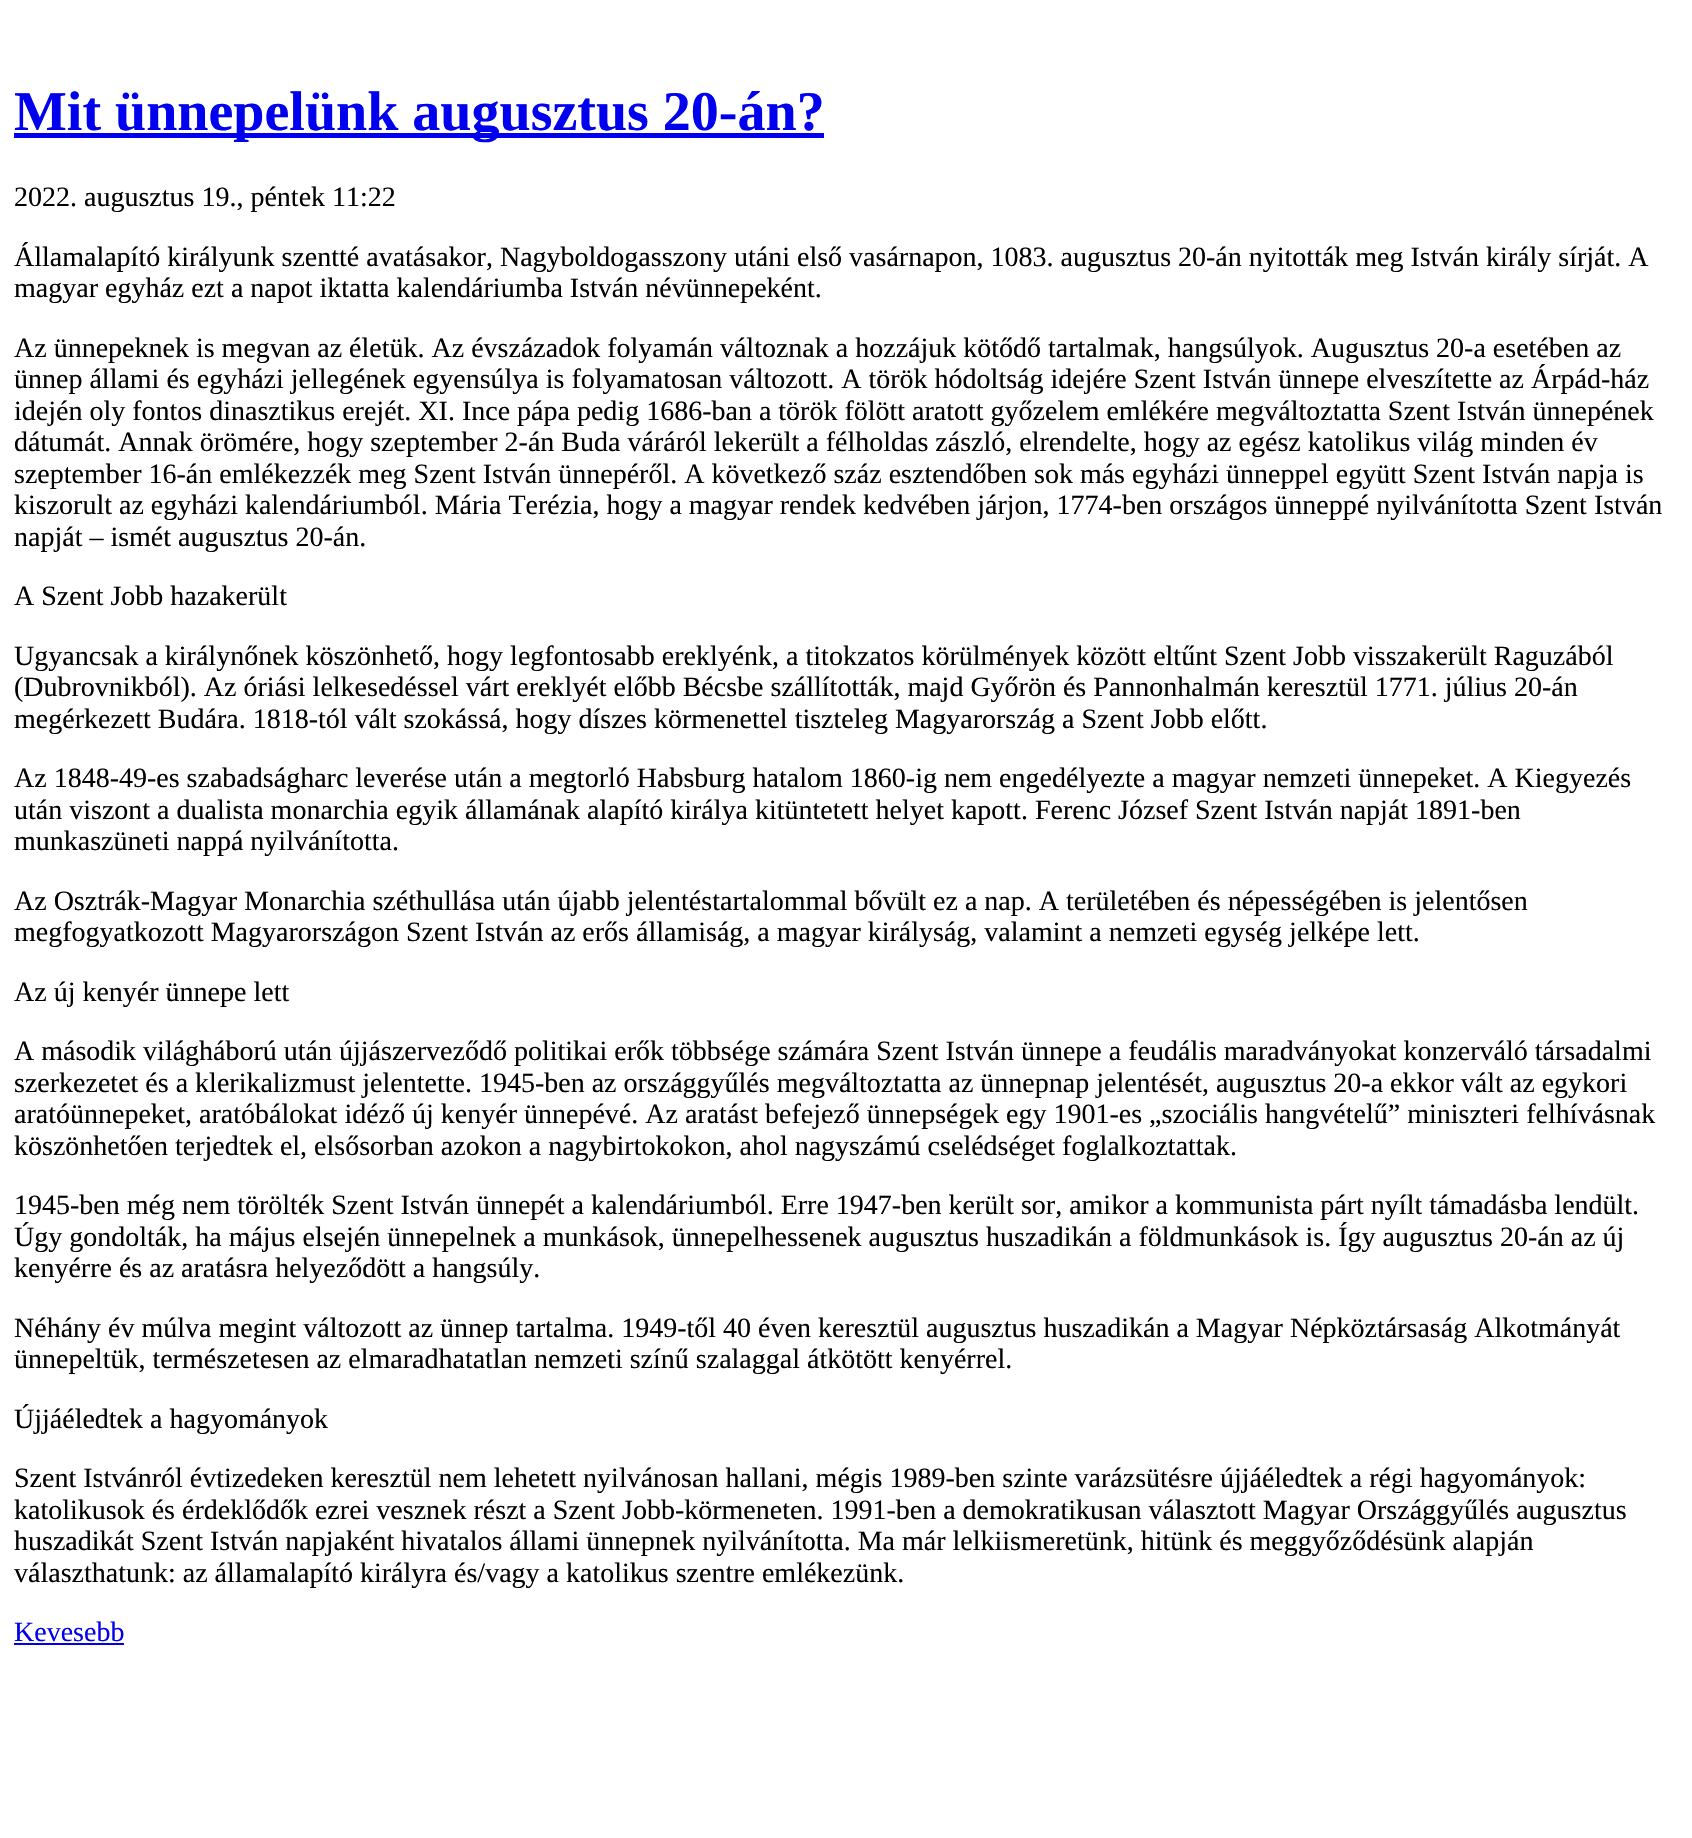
void draw(SkCanvas* canvas) {
  SkPaint paint;
  paint.setAntiAlias(true);
  auto face = [&](const char* family, int weight, float size, bool italic = false) {
    SkFontStyle style(weight, SkFontStyle::kNormal_Width,
      italic ? SkFontStyle::kItalic_Slant : SkFontStyle::kUpright_Slant);
    SkFont result(fontMgr->matchFamilyStyle(family, style), size);
    result.setSubpixel(true);
    return result;
  };
  canvas->clear(0xffffffff);
  paint.setColor(0xff0000ee);
  canvas->drawRect(SkRect::MakeXYWH(14, 133, 810, 5), paint);
  canvas->drawRect(SkRect::MakeXYWH(14, 1643, 110, 2), paint);
  auto f0 = face("Liberation Serif", 700, 56);
  canvas->drawString("Mit ünnepelünk augusztus 20-án?", 14, 130, f0, paint);
  auto f1 = face("Liberation Serif", 400, 28);
  paint.setColor(0xff000000);
  {
    const struct { const char* s; float x, y; } items[] = {
      {"2022. augusztus 19., péntek 11:22", 14, 206},
      {"Államalapító királyunk szentté avatásakor, Nagyboldogasszony utáni első vasárnapon, 1083. augusztus 20-án nyitották meg István király sírját. A", 14, 266},
      {"magyar egyház ezt a napot iktatta kalendáriumba István névünnepeként.", 14, 297},
      {"Az ünnepeknek is megvan az életük. Az évszázadok folyamán változnak a hozzájuk kötődő tartalmak, hangsúlyok. Augusztus 20-a esetében az", 14, 357},
      {"ünnep állami és egyházi jellegének egyensúlya is folyamatosan változott. A török hódoltság idejére Szent István ünnepe elveszítette az Árpád-ház", 14, 388},
      {"idején oly fontos dinasztikus erejét. XI. Ince pápa pedig 1686-ban a török fölött aratott győzelem emlékére megváltoztatta Szent István ünnepének", 14, 420},
      {"dátumát. Annak örömére, hogy szeptember 2-án Buda váráról lekerült a félholdas zászló, elrendelte, hogy az egész katolikus világ minden év", 14, 451},
      {"szeptember 16-án emlékezzék meg Szent István ünnepéről. A következő száz esztendőben sok más egyházi ünneppel együtt Szent István napja is", 14, 483},
      {"kiszorult az egyházi kalendáriumból. Mária Terézia, hogy a magyar rendek kedvében járjon, 1774-ben országos ünneppé nyilvánította Szent István", 14, 514},
      {"napját – ismét augusztus 20-án.", 14, 546},
      {"A Szent Jobb hazakerült", 14, 605},
      {"Ugyancsak a királynőnek köszönhető, hogy legfontosabb ereklyénk, a titokzatos körülmények között eltűnt Szent Jobb visszakerült Raguzából", 14, 665},
      {"(Dubrovnikból). Az óriási lelkesedéssel várt ereklyét előbb Bécsbe szállították, majd Győrön és Pannonhalmán keresztül 1771. július 20-án", 14, 696},
      {"megérkezett Budára. 1818-tól vált szokássá, hogy díszes körmenettel tiszteleg Magyarország a Szent Jobb előtt.", 14, 728},
      {"Az 1848-49-es szabadságharc leverése után a megtorló Habsburg hatalom 1860-ig nem engedélyezte a magyar nemzeti ünnepeket. A Kiegyezés", 14, 787},
      {"után viszont a dualista monarchia egyik államának alapító királya kitüntetett helyet kapott. Ferenc József Szent István napját 1891-ben", 14, 819},
      {"munkaszüneti nappá nyilvánította.", 14, 850},
      {"Az Osztrák-Magyar Monarchia széthullása után újabb jelentéstartalommal bővült ez a nap. A területében és népességében is jelentősen", 14, 910},
      {"megfogyatkozott Magyarországon Szent István az erős államiság, a magyar királyság, valamint a nemzeti egység jelképe lett.", 14, 941},
      {"Az új kenyér ünnepe lett", 14, 1001},
      {"A második világháború után újjászerveződő politikai erők többsége számára Szent István ünnepe a feudális maradványokat konzerváló társadalmi", 14, 1060},
      {"szerkezetet és a klerikalizmust jelentette. 1945-ben az országgyűlés megváltoztatta az ünnepnap jelentését, augusztus 20-a ekkor vált az egykori", 14, 1092},
      {"aratóünnepeket, aratóbálokat idéző új kenyér ünnepévé. Az aratást befejező ünnepségek egy 1901-es „szociális hangvételű” miniszteri felhívásnak", 14, 1123},
      {"köszönhetően terjedtek el, elsősorban azokon a nagybirtokokon, ahol nagyszámú cselédséget foglalkoztattak.", 14, 1155},
      {"1945-ben még nem törölték Szent István ünnepét a kalendáriumból. Erre 1947-ben került sor, amikor a kommunista párt nyílt támadásba lendült.", 14, 1214},
      {"Úgy gondolták, ha május elsején ünnepelnek a munkások, ünnepelhessenek augusztus huszadikán a földmunkások is. Így augusztus 20-án az új", 14, 1246},
      {"kenyérre és az aratásra helyeződött a hangsúly.", 14, 1277},
      {"Néhány év múlva megint változott az ünnep tartalma. 1949-től 40 éven keresztül augusztus huszadikán a Magyar Népköztársaság Alkotmányát", 14, 1337},
      {"ünnepeltük, természetesen az elmaradhatatlan nemzeti színű szalaggal átkötött kenyérrel.", 14, 1368},
      {"Újjáéledtek a hagyományok", 14, 1428},
      {"Szent Istvánról évtizedeken keresztül nem lehetett nyilvánosan hallani, mégis 1989-ben szinte varázsütésre újjáéledtek a régi hagyományok:", 14, 1487},
      {"katolikusok és érdeklődők ezrei vesznek részt a Szent Jobb-körmeneten. 1991-ben a demokratikusan választott Magyar Országgyűlés augusztus", 14, 1519},
      {"huszadikát Szent István napjaként hivatalos állami ünnepnek nyilvánította. Ma már lelkiismeretünk, hitünk és meggyőződésünk alapján", 14, 1550},
      {"választhatunk: az államalapító királyra és/vagy a katolikus szentre emlékezünk.", 14, 1582},
    };
    for (auto [s, x, y] : items) {
      canvas->drawString(s, x, y, f1, paint);
    }
  }
  paint.setColor(0xff0000ee);
  canvas->drawString("Kevesebb", 14, 1641, f1, paint);
}
